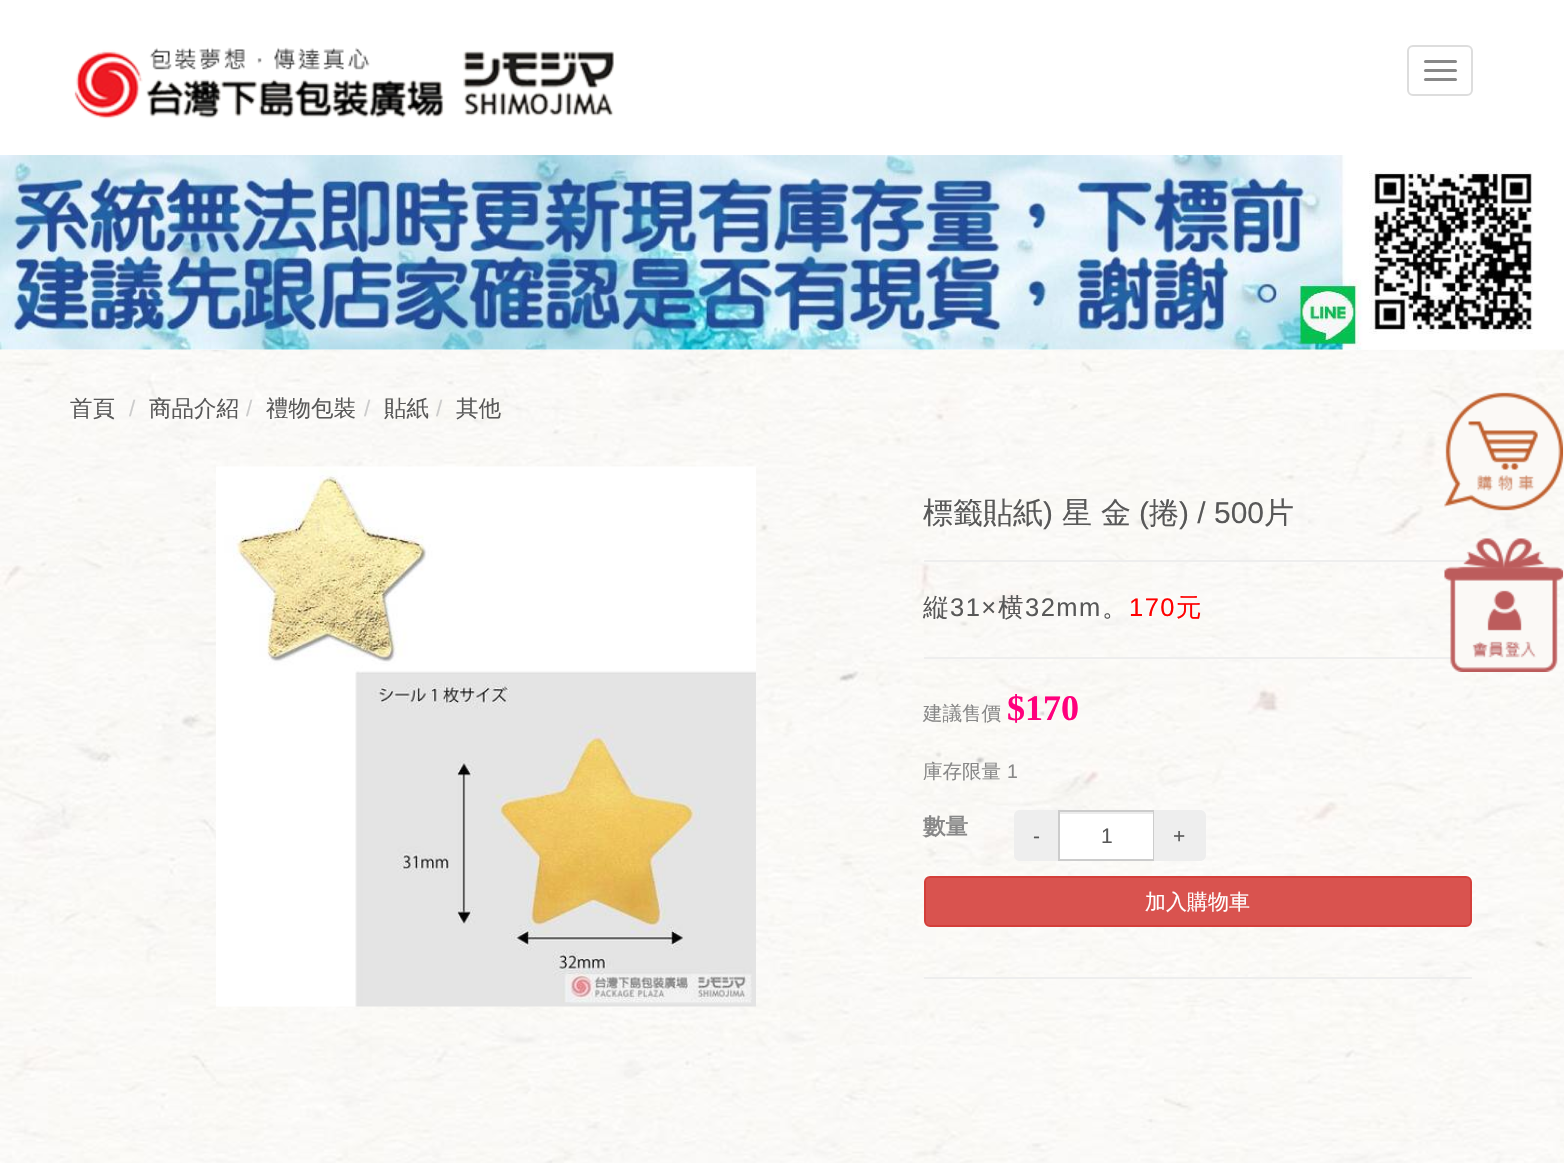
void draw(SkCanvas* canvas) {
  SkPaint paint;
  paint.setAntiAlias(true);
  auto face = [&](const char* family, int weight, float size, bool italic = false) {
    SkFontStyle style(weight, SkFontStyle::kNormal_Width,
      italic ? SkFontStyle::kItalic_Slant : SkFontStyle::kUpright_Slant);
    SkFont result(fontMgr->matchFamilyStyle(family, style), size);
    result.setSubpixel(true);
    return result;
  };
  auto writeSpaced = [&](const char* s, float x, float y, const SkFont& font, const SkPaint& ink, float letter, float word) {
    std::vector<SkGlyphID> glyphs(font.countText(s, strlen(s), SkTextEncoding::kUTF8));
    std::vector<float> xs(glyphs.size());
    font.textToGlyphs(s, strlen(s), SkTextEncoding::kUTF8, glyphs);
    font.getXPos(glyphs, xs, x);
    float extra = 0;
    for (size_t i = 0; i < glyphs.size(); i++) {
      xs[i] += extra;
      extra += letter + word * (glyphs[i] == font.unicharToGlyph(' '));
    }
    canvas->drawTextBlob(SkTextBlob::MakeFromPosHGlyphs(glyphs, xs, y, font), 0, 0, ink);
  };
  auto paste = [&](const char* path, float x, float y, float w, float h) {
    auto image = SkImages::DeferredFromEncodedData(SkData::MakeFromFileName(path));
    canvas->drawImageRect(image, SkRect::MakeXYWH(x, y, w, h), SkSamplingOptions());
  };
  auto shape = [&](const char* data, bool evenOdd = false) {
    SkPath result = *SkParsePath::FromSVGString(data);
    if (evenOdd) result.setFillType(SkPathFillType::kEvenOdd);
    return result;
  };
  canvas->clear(0xffffffff);
  paste("img/1.png", 74, 47, 540, 72);
  paint.setStroke(true);
  paint.setStrokeWidth(2);
  paint.setColor(0xffdddddd);
  canvas->drawRoundRect(SkRect::MakeXYWH(1408, 46, 64, 49), 5, 5, paint);
  paint.setStroke(false);
  paint.setColor(0xff888888);
  canvas->drawRoundRect(SkRect::MakeXYWH(1424, 60, 33, 3), 1.5f, 1.5f, paint);
  canvas->drawRoundRect(SkRect::MakeXYWH(1424, 69, 33, 3), 1.5f, 1.5f, paint);
  canvas->drawRoundRect(SkRect::MakeXYWH(1424, 78, 33, 3), 1.5f, 1.5f, paint);
  paste("img/3.png", 0, 349, 1564, 814);
  paste("img/2.png", 0, 155, 1533, 195);
  paste("img/4.png", 216, 466, 540, 541);
  paint.setColor(0xffeeeeee);
  canvas->drawRect(SkRect::MakeXYWH(924, 560, 548, 2), paint);
  canvas->drawRect(SkRect::MakeXYWH(924, 657, 531, 2), paint);
  canvas->drawPath(shape("M1020 810H1059V861H1020C1016.5 861 1014 858.5 1014 855V816C1014 812.5 1016.5 810 1020 810Z"), paint);
  paint.setColor(0xffffffff);
  canvas->drawRect(SkRect::MakeXYWH(1060, 814, 93, 45), paint);
  paint.setColor(0xffececec);
  canvas->drawRect(SkRect::MakeXYWH(1059, 812, 95, 2), paint);
  paint.setStroke(true);
  paint.setColor(0xffcccccc);
  canvas->drawRect(SkRect::MakeXYWH(1059, 811, 95, 49), paint);
  paint.setStroke(false);
  paint.setColor(0xffeeeeee);
  canvas->drawPath(shape("M1154 810H1200C1203.5 810 1206 812.5 1206 816V855C1206 858.5 1203.5 861 1200 861H1154Z"), paint);
  paint.setColor(0xffd9534f);
  canvas->drawRoundRect(SkRect::MakeXYWH(925, 877, 546, 49), 5, 5, paint);
  paint.setStroke(true);
  paint.setColor(0xffd43f3a);
  canvas->drawRoundRect(SkRect::MakeXYWH(925, 877, 546, 49), 5, 5, paint);
  paint.setStroke(false);
  paint.setColor(0xffeeeeee);
  canvas->drawRect(SkRect::MakeXYWH(924, 977, 548, 2), paint);
  paste("img/5.png", 1444, 392, 119, 119);
  paste("img/6.png", 1444, 538, 119, 134);
  auto f0 = face("WenQuanYi Zen Hei", 500, 22.5f);
  paint.setColor(0xff585858);
  canvas->drawString("首頁", 70, 416, f0, paint);
  auto f1 = face("Liberation Sans", 400, 22.5f);
  paint.setColor(0xffcccccc);
  canvas->drawString("/", 129, 416, f1, paint);
  paint.setColor(0xff585858);
  canvas->drawString("商品介紹", 149, 416, f0, paint);
  paint.setColor(0xffcccccc);
  canvas->drawString("/", 246, 416, f1, paint);
  paint.setColor(0xff585858);
  canvas->drawString("禮物包裝", 266, 416, f0, paint);
  paint.setColor(0xffcccccc);
  canvas->drawString("/", 364, 416, f1, paint);
  paint.setColor(0xff585858);
  canvas->drawString("貼紙", 384, 416, f0, paint);
  paint.setColor(0xffcccccc);
  canvas->drawString("/", 436, 416, f1, paint);
  paint.setColor(0xff585858);
  canvas->drawString("其他", 456, 416, f0, paint);
  auto f2 = face("WenQuanYi Zen Hei", 500, 30);
  canvas->drawString("標籤貼紙", 923, 523, f2, paint);
  auto f3 = face("Liberation Sans", 400, 30);
  canvas->drawString(")", 1043, 523, f3, paint);
  canvas->drawString("星 金", 1062, 523, f2, paint);
  canvas->drawString("(", 1139, 523, f3, paint);
  canvas->drawString("捲", 1149, 523, f2, paint);
  canvas->drawString(") / 500", 1179, 523, f3, paint);
  canvas->drawString("片", 1264, 523, f2, paint);
  auto f4 = face("WenQuanYi Zen Hei", 500, 25.5f);
  writeSpaced("縦", 923, 616, f4, paint, 1.5f, 0);
  auto f5 = face("Liberation Sans", 400, 25.5f);
  writeSpaced("31×", 950, 616, f5, paint, 1.5f, 0);
  writeSpaced("横", 998, 616, f4, paint, 1.5f, 0);
  writeSpaced("32mm", 1025, 616, f5, paint, 1.5f, 0);
  writeSpaced("。", 1102, 616, f4, paint, 1.5f, 0);
  paint.setColor(0xffff0000);
  writeSpaced("170", 1129, 616, f5, paint, 1.5f, 0);
  writeSpaced("元", 1176, 616, f4, paint, 1.5f, 0);
  auto f6 = face("WenQuanYi Zen Hei", 500, 19.5f);
  paint.setColor(0xff888888);
  canvas->drawString("建議售價", 923, 720, f6, paint);
  auto f7 = face("Liberation Serif", 700, 36);
  paint.setColor(0xffff007c);
  canvas->drawString("$170", 1007, 720, f7, paint);
  paint.setColor(0xff888888);
  canvas->drawString("庫存限量", 923, 778, f6, paint);
  auto f8 = face("Liberation Sans", 400, 19.5f);
  canvas->drawString("1", 1007, 778, f8, paint);
  auto f9 = face("WenQuanYi Zen Hei", 700, 22.5f);
  canvas->drawString("數量", 923, 834, f9, paint);
  auto f10 = face("Liberation Sans", 400, 21);
  paint.setColor(0xff585858);
  {
    const struct { const char* s; float x, y; } items[] = {
      {"-", 1033, 843},
      {"1", 1101, 843},
      {"+", 1173, 843},
    };
    for (auto [s, x, y] : items) {
      canvas->drawString(s, x, y, f10, paint);
    }
  }
  auto f11 = face("WenQuanYi Zen Hei", 500, 21);
  paint.setColor(0xffffffff);
  canvas->drawString("加入購物車", 1145, 909, f11, paint);
}
